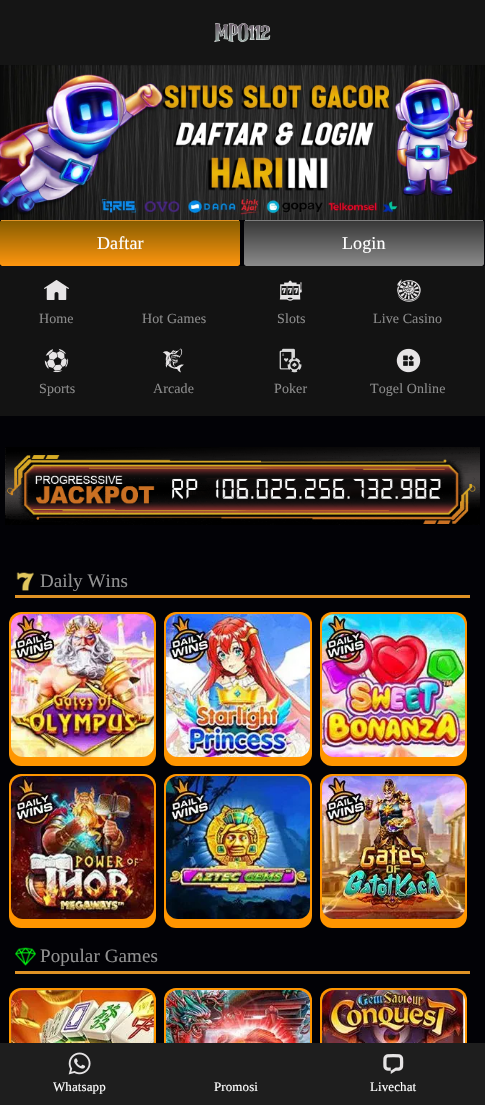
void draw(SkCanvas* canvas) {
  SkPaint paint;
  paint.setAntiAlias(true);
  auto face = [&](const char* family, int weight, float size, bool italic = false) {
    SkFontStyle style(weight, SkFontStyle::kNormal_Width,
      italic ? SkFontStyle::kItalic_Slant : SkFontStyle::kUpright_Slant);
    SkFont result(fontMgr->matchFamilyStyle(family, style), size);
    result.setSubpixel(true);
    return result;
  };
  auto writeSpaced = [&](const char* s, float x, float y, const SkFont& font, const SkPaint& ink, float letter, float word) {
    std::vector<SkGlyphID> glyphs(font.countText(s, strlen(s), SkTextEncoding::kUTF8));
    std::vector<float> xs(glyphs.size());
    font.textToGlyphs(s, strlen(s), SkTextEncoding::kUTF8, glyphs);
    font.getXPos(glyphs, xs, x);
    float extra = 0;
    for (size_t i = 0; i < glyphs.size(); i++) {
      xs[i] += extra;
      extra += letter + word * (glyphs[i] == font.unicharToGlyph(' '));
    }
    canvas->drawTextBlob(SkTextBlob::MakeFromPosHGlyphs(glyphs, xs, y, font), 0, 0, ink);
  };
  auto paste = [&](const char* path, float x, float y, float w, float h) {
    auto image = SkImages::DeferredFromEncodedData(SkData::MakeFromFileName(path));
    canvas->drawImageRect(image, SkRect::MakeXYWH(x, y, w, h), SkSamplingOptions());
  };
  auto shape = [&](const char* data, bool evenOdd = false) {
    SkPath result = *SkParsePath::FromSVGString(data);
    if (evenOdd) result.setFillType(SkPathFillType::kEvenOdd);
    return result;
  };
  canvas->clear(0xff020206);
  paint.setColor(0xff151515);
  canvas->drawRect(SkRect::MakeXYWH(0, 0, 485, 65), paint);
  paste("img/1.png", 214, 23, 57, 20);
  paste("img/2.png", 0, 65, 485, 155);
  canvas->save();
  canvas->clipPath(shape("M2 220H238C239 220 240 221 240 222V264C240 265 239 266 238 266H2C1 266 0 265 0 264V222C0 221 1 220 2 220Z"), true);
  {
    const SkColor colors[] = {0xff885d00, 0xfffe960f};
    const float stops[] = {0, 1};
    const SkPoint ends[] = {{120, 221}, {120, 266}};
    paint.setShader(SkGradientShader::MakeLinear(ends, colors, stops, 2, SkTileMode::kClamp));
    paint.setAlpha(255);
  }
  canvas->drawPath(shape("M0 221H240V264C240 265 239 266 238 266H2C1 266 0 265 0 264Z"), paint);
  canvas->restore();
  paint.setShader(nullptr);
  paint.setColor(0xffdf9225);
  canvas->drawRect(SkRect::MakeXYWH(1, 220, 238, 1), paint);
  canvas->save();
  canvas->clipPath(shape("M246 220H482C483 220 484 221 484 222V264C484 265 483 266 482 266H246C245 266 244 265 244 264V222C244 221 245 220 246 220Z"), true);
  {
    const SkColor colors[] = {0xff373737, 0xff8b8b8b};
    const float stops[] = {0, 1};
    const SkPoint ends[] = {{364, 221}, {364, 266}};
    paint.setShader(SkGradientShader::MakeLinear(ends, colors, stops, 2, SkTileMode::kClamp));
    paint.setAlpha(255);
  }
  canvas->drawPath(shape("M244 221H484V264C484 265 483 266 482 266H246C245 266 244 265 244 264Z"), paint);
  canvas->restore();
  paint.setShader(nullptr);
  paint.setColor(0xff7e7e7e);
  canvas->drawRect(SkRect::MakeXYWH(245, 220, 238, 1), paint);
  paint.setColor(0xff131313);
  canvas->drawRect(SkRect::MakeXYWH(0, 266, 485, 150), paint);
  paste("img/3.png", 44, 280, 25, 20);
  paste("img/4.png", 279, 280, 23, 21);
  paste("img/5.png", 397, 279, 24, 23);
  paste("img/6.png", 44, 348, 25, 25);
  paste("img/7.png", 162, 348, 22, 25);
  paste("img/8.png", 279, 348, 23, 25);
  paste("img/9.png", 396, 348, 25, 25);
  paste("img/10.png", 5, 447, 475, 78);
  paint.setColor(0xffdf9225);
  canvas->drawRect(SkRect::MakeXYWH(15, 595, 455, 3), paint);
  paste("img/11.png", 16, 572, 18, 19);
  paint.setColor(0xffff9500);
  canvas->drawRoundRect(SkRect::MakeXYWH(9, 612, 147, 154), 12, 12, paint);
  paste("img/12.png", 11, 614, 143, 143);
  canvas->drawRoundRect(SkRect::MakeXYWH(164, 612, 148, 154), 12, 12, paint);
  paste("img/13.png", 166, 614, 144, 143);
  canvas->drawRoundRect(SkRect::MakeXYWH(320, 612, 147, 154), 12, 12, paint);
  paste("img/14.png", 322, 614, 143, 143);
  canvas->drawRoundRect(SkRect::MakeXYWH(9, 774, 147, 154), 12, 12, paint);
  paste("img/15.png", 11, 776, 143, 143);
  canvas->drawRoundRect(SkRect::MakeXYWH(164, 774, 148, 154), 12, 12, paint);
  paste("img/16.png", 166, 776, 144, 143);
  canvas->drawRoundRect(SkRect::MakeXYWH(320, 774, 147, 154), 12, 12, paint);
  paste("img/17.png", 322, 776, 143, 143);
  paint.setColor(0xffdf9225);
  canvas->drawRect(SkRect::MakeXYWH(15, 971, 455, 3), paint);
  paste("img/18.png", 15, 947, 21, 19);
  paint.setColor(0xffff9500);
  canvas->drawRoundRect(SkRect::MakeXYWH(9, 988, 147, 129), 12, 12, paint);
  paste("img/19.png", 11, 990, 143, 53);
  canvas->drawRoundRect(SkRect::MakeXYWH(164, 988, 148, 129), 12, 12, paint);
  paste("img/20.png", 166, 990, 144, 53);
  canvas->drawRoundRect(SkRect::MakeXYWH(320, 988, 147, 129), 12, 12, paint);
  paste("img/21.png", 322, 990, 143, 53);
  paint.setColor(0xff1e1e1e);
  canvas->drawRect(SkRect::MakeXYWH(0, 1043, 485, 62), paint);
  paste("img/22.png", 68, 1052, 23, 23);
  paste("img/23.png", 383, 1054, 21, 20);
  auto f0 = face("Liberation Serif", 400, 18);
  paint.setColor(0xffffffff);
  writeSpaced("Daftar", 97, 249, f0, paint, 0.1f, 0);
  writeSpaced("Login", 342, 249, f0, paint, 0.1f, 0);
  auto f1 = face("Liberation Serif", 400, 14);
  paint.setColor(0xff8b8b8b);
  {
    const struct { const char* s; float x, y; } items[] = {
      {"Home", 39, 323},
      {"Hot Games", 142, 323},
      {"Slots", 277, 323},
      {"Live Casino", 373, 323},
      {"Sports", 39, 393},
      {"Arcade", 153, 393},
      {"Poker", 274, 393},
      {"Togel Online", 370, 393},
    };
    for (auto [s, x, y] : items) {
      writeSpaced(s, x, y, f1, paint, 0.1f, 0);
    }
  }
  auto f2 = face("Liberation Serif", 400, 19);
  paint.setColor(0xff929292);
  writeSpaced("Daily Wins", 40, 587, f2, paint, 0.1f, 0);
  writeSpaced("Popular Games", 40, 962, f2, paint, 0.1f, 0);
  auto f3 = face("Liberation Serif", 400, 13);
  paint.setColor(0xffffffff);
  {
    const struct { const char* s; float x, y; } items[] = {
      {"Whatsapp", 53, 1091},
      {"Promosi", 214, 1091},
      {"Livechat", 370, 1091},
    };
    for (auto [s, x, y] : items) {
      writeSpaced(s, x, y, f3, paint, 0.1f, 0);
    }
  }
}
